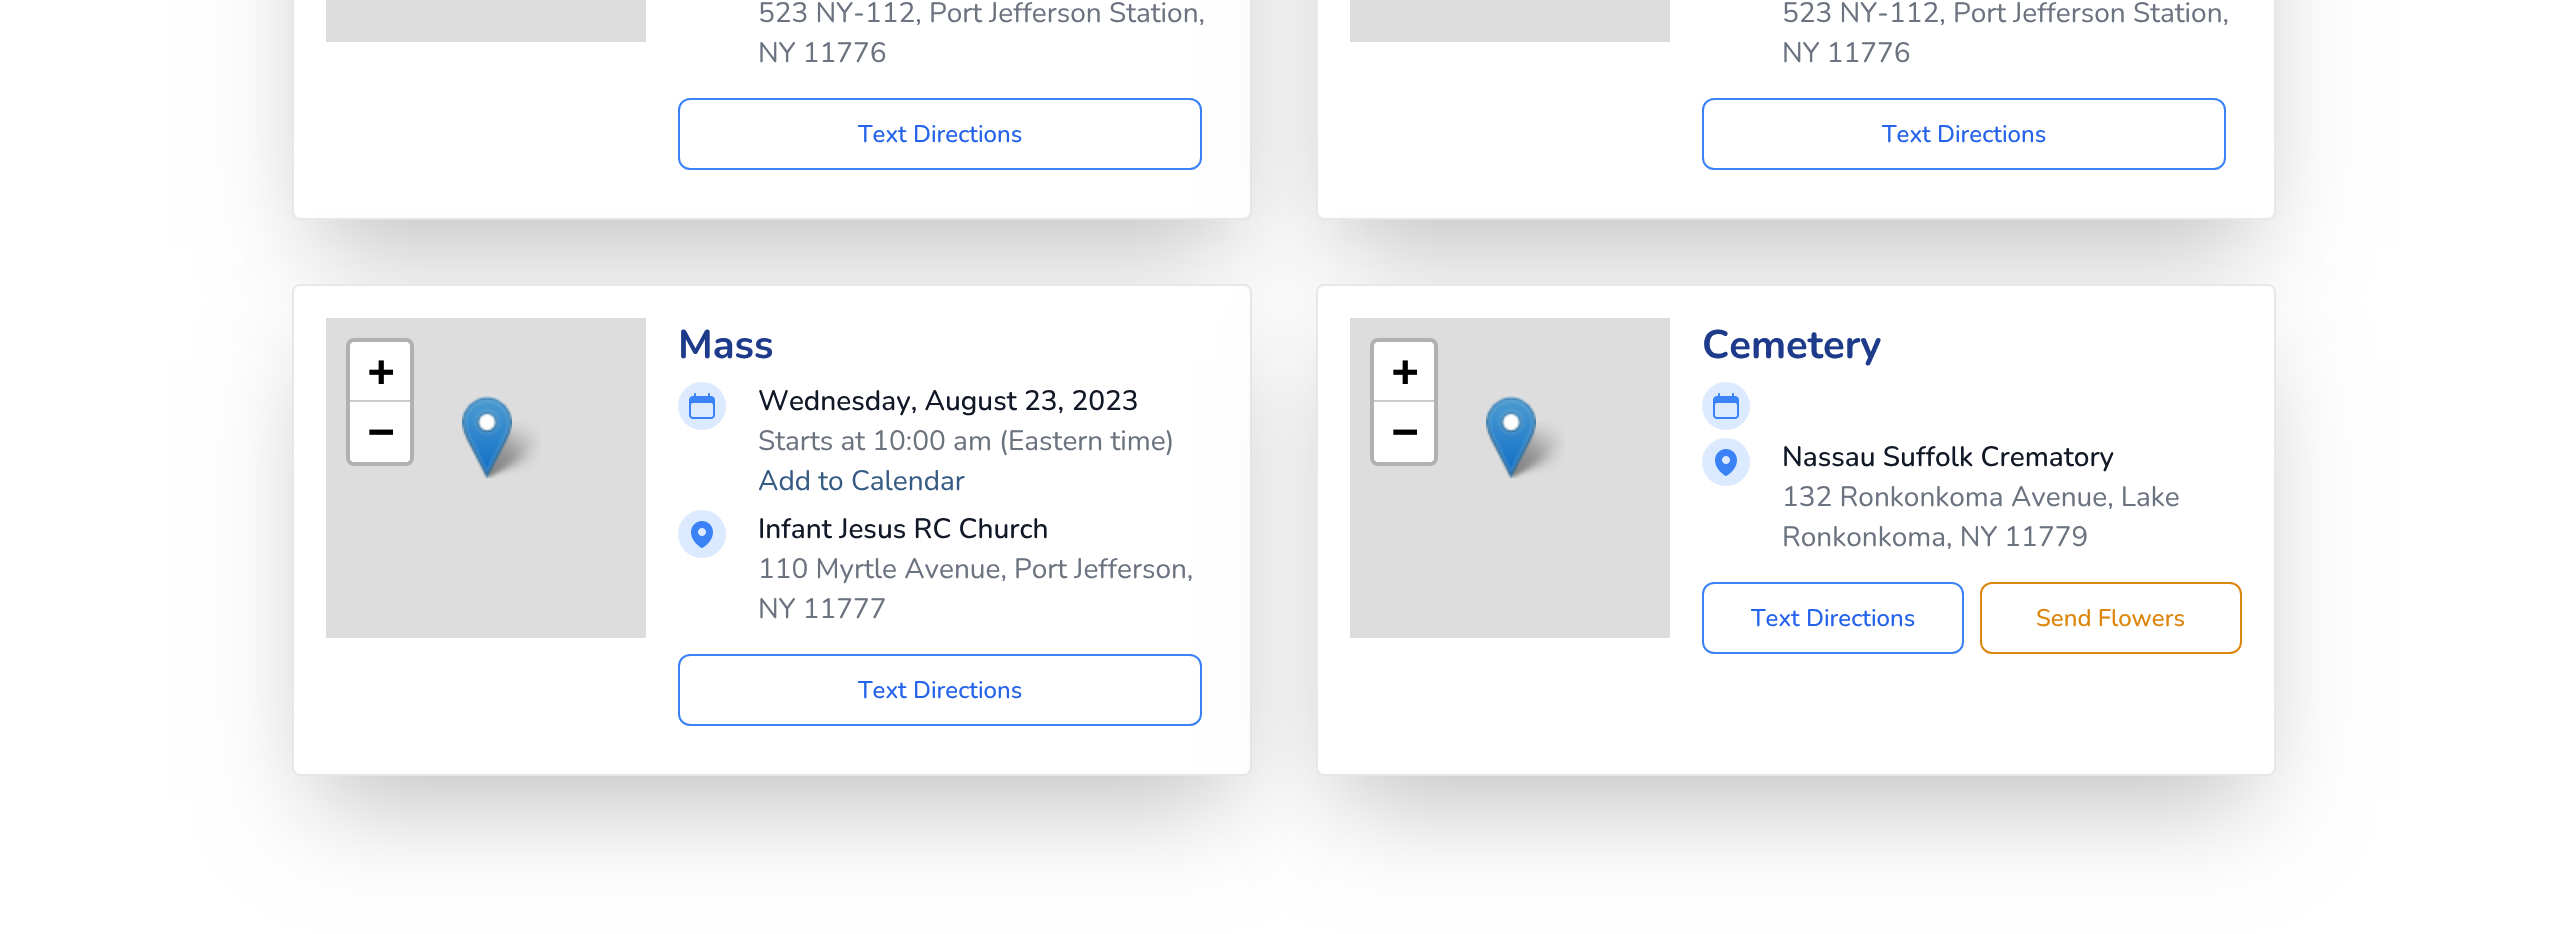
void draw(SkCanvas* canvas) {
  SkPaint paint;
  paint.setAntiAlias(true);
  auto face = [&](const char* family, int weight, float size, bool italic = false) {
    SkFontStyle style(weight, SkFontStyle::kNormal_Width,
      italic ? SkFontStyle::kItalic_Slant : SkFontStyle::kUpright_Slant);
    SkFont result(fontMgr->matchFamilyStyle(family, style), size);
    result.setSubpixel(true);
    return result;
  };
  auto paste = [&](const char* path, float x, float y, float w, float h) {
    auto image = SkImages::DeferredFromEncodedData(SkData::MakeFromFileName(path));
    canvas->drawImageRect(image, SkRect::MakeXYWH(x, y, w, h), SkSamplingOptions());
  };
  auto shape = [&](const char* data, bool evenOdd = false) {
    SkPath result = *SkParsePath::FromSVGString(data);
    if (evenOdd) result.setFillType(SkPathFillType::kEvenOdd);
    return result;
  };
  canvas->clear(0xffffffff);
  paint.setColor(0x40000000);
  paint.setMaskFilter(SkMaskFilter::MakeBlur(kNormal_SkBlurStyle, 50));
  canvas->drawRect(SkRect::MakeXYWH(316, -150, 912, 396), paint);
  paint.setMaskFilter(nullptr);
  paint.setColor(0xffffffff);
  canvas->drawRoundRect(SkRect::MakeXYWH(293, -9, 958, 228), 7, 7, paint);
  paint.setStroke(true);
  paint.setStrokeWidth(2);
  paint.setColor(0xffe5e7eb);
  canvas->drawRoundRect(SkRect::MakeXYWH(293, -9, 958, 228), 7, 7, paint);
  paint.setStroke(false);
  paint.setColor(0xffdddddd);
  canvas->drawRect(SkRect::MakeXYWH(326, 0, 320, 42), paint);
  paint.setStroke(true);
  paint.setColor(0xff3b82f6);
  canvas->drawRoundRect(SkRect::MakeXYWH(679, 99, 522, 70), 11, 11, paint);
  paint.setStroke(false);
  paint.setColor(0x40000000);
  paint.setMaskFilter(SkMaskFilter::MakeBlur(kNormal_SkBlurStyle, 50));
  canvas->drawRect(SkRect::MakeXYWH(1340, -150, 912, 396), paint);
  paint.setMaskFilter(nullptr);
  paint.setColor(0xffffffff);
  canvas->drawRoundRect(SkRect::MakeXYWH(1317, -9, 958, 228), 7, 7, paint);
  paint.setStroke(true);
  paint.setColor(0xffe5e7eb);
  canvas->drawRoundRect(SkRect::MakeXYWH(1317, -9, 958, 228), 7, 7, paint);
  paint.setStroke(false);
  paint.setColor(0xffdddddd);
  canvas->drawRect(SkRect::MakeXYWH(1350, 0, 320, 42), paint);
  paint.setStroke(true);
  paint.setColor(0xff3b82f6);
  canvas->drawRoundRect(SkRect::MakeXYWH(1703, 99, 522, 70), 11, 11, paint);
  paint.setStroke(false);
  paint.setColor(0x40000000);
  paint.setMaskFilter(SkMaskFilter::MakeBlur(kNormal_SkBlurStyle, 50));
  canvas->drawRect(SkRect::MakeXYWH(316, 358, 912, 444), paint);
  paint.setMaskFilter(nullptr);
  paint.setColor(0xffffffff);
  canvas->drawRoundRect(SkRect::MakeXYWH(293, 285, 958, 490), 7, 7, paint);
  paint.setStroke(true);
  paint.setColor(0xffe5e7eb);
  canvas->drawRoundRect(SkRect::MakeXYWH(293, 285, 958, 490), 7, 7, paint);
  paint.setStroke(false);
  paint.setColor(0xffdddddd);
  canvas->drawRect(SkRect::MakeXYWH(326, 318, 320, 320), paint);
  paint.setStroke(true);
  paint.setStrokeWidth(4);
  paint.setColor(0xffb1b1b1);
  canvas->drawRoundRect(SkRect::MakeXYWH(348, 340, 64, 124), 6, 6, paint);
  paint.setStroke(false);
  paint.setColor(0xffffffff);
  canvas->drawPath(shape("M354 342H406C408 342 410 344 410 346V400H350V346C350 344 352 342 354 342Z"), paint);
  paint.setColor(0xffcccccc);
  canvas->drawRect(SkRect::MakeXYWH(350, 400, 60, 2), paint);
  paint.setColor(0xffffffff);
  canvas->drawPath(shape("M350 402H410V458C410 460 408 462 406 462H354C352 462 350 460 350 458Z"), paint);
  paste("img/2.png", 480, 421, 60, 57);
  paste("img/1.png", 462, 396, 50, 82);
  paint.setColor(0xffdbeafe);
  canvas->drawCircle(702, 406, 24, paint);
  paste("img/3.png", 689, 393, 26, 26);
  canvas->drawCircle(702, 534, 24, paint);
  paste("img/4.png", 691, 521, 22, 27);
  paint.setStroke(true);
  paint.setStrokeWidth(2);
  paint.setColor(0xff3b82f6);
  canvas->drawRoundRect(SkRect::MakeXYWH(679, 655, 522, 70), 11, 11, paint);
  paint.setStroke(false);
  paint.setColor(0x40000000);
  paint.setMaskFilter(SkMaskFilter::MakeBlur(kNormal_SkBlurStyle, 50));
  canvas->drawRect(SkRect::MakeXYWH(1340, 358, 912, 444), paint);
  paint.setMaskFilter(nullptr);
  paint.setColor(0xffffffff);
  canvas->drawRoundRect(SkRect::MakeXYWH(1317, 285, 958, 490), 7, 7, paint);
  paint.setStroke(true);
  paint.setColor(0xffe5e7eb);
  canvas->drawRoundRect(SkRect::MakeXYWH(1317, 285, 958, 490), 7, 7, paint);
  paint.setStroke(false);
  paint.setColor(0xffdddddd);
  canvas->drawRect(SkRect::MakeXYWH(1350, 318, 320, 320), paint);
  paint.setStroke(true);
  paint.setStrokeWidth(4);
  paint.setColor(0xffb1b1b1);
  canvas->drawRoundRect(SkRect::MakeXYWH(1372, 340, 64, 124), 6, 6, paint);
  paint.setStroke(false);
  paint.setColor(0xffffffff);
  canvas->drawPath(shape("M1378 342H1430C1432 342 1434 344 1434 346V400H1374V346C1374 344 1376 342 1378 342Z"), paint);
  paint.setColor(0xffcccccc);
  canvas->drawRect(SkRect::MakeXYWH(1374, 400, 60, 2), paint);
  paint.setColor(0xffffffff);
  canvas->drawPath(shape("M1374 402H1434V458C1434 460 1432 462 1430 462H1378C1376 462 1374 460 1374 458Z"), paint);
  paste("img/2.png", 1504, 421, 60, 57);
  paste("img/1.png", 1486, 396, 50, 82);
  paint.setColor(0xffdbeafe);
  canvas->drawCircle(1726, 406, 24, paint);
  paste("img/3.png", 1713, 393, 26, 26);
  canvas->drawCircle(1726, 462, 24, paint);
  paste("img/4.png", 1715, 449, 22, 27);
  paint.setStroke(true);
  paint.setStrokeWidth(2);
  paint.setColor(0xff3b82f6);
  canvas->drawRoundRect(SkRect::MakeXYWH(1703, 583, 260, 70), 11, 11, paint);
  paint.setColor(0xffdc860d);
  canvas->drawRoundRect(SkRect::MakeXYWH(1981, 583, 260, 70), 11, 11, paint);
  auto f0 = face("Nunito", 400, 28);
  paint.setStroke(false);
  paint.setColor(0xff6b7280);
  canvas->drawString("523 NY-112, Port Jefferson Station,", 758, 22, f0, paint);
  canvas->drawString("NY 11776", 758, 62, f0, paint);
  auto f1 = face("Nunito", 500, 24);
  paint.setColor(0xff2563eb);
  canvas->drawString("Text Directions", 858, 142, f1, paint);
  paint.setColor(0xff6b7280);
  canvas->drawString("523 NY-112, Port Jefferson Station,", 1782, 22, f0, paint);
  canvas->drawString("NY 11776", 1782, 62, f0, paint);
  paint.setColor(0xff2563eb);
  canvas->drawString("Text Directions", 1882, 142, f1, paint);
  auto f2 = face("DejaVu Sans Mono", 700, 44);
  paint.setColor(0xff000000);
  canvas->drawString("+", 368, 386, f2, paint);
  canvas->drawString("−", 368, 446, f2, paint);
  auto f3 = face("Nunito", 700, 40);
  paint.setColor(0xff1e3a8a);
  canvas->drawString("Mass", 678, 358, f3, paint);
  auto f4 = face("Nunito", 500, 28);
  paint.setColor(0xff111827);
  canvas->drawString("Wednesday, August 23, 2023", 758, 410, f4, paint);
  paint.setColor(0xff6b7280);
  canvas->drawString("Starts at 10:00 am (Eastern time)", 758, 450, f0, paint);
  paint.setColor(0xff375c84);
  canvas->drawString("Add to Calendar", 758, 490, f0, paint);
  paint.setColor(0xff111827);
  canvas->drawString("Infant Jesus RC Church", 758, 538, f4, paint);
  paint.setColor(0xff6b7280);
  canvas->drawString("110 Myrtle Avenue, Port Jefferson,", 758, 578, f0, paint);
  canvas->drawString("NY 11777", 758, 618, f0, paint);
  paint.setColor(0xff2563eb);
  canvas->drawString("Text Directions", 858, 698, f1, paint);
  paint.setColor(0xff000000);
  canvas->drawString("+", 1392, 386, f2, paint);
  canvas->drawString("−", 1392, 446, f2, paint);
  paint.setColor(0xff1e3a8a);
  canvas->drawString("Cemetery", 1702, 358, f3, paint);
  paint.setColor(0xff111827);
  canvas->drawString("Nassau Suffolk Crematory", 1782, 466, f4, paint);
  paint.setColor(0xff6b7280);
  canvas->drawString("132 Ronkonkoma Avenue, Lake", 1782, 506, f0, paint);
  canvas->drawString("Ronkonkoma, NY 11779", 1782, 546, f0, paint);
  paint.setColor(0xff2563eb);
  canvas->drawString("Text Directions", 1751, 626, f1, paint);
  paint.setColor(0xffdc860d);
  canvas->drawString("Send Flowers", 2036, 626, f1, paint);
}
